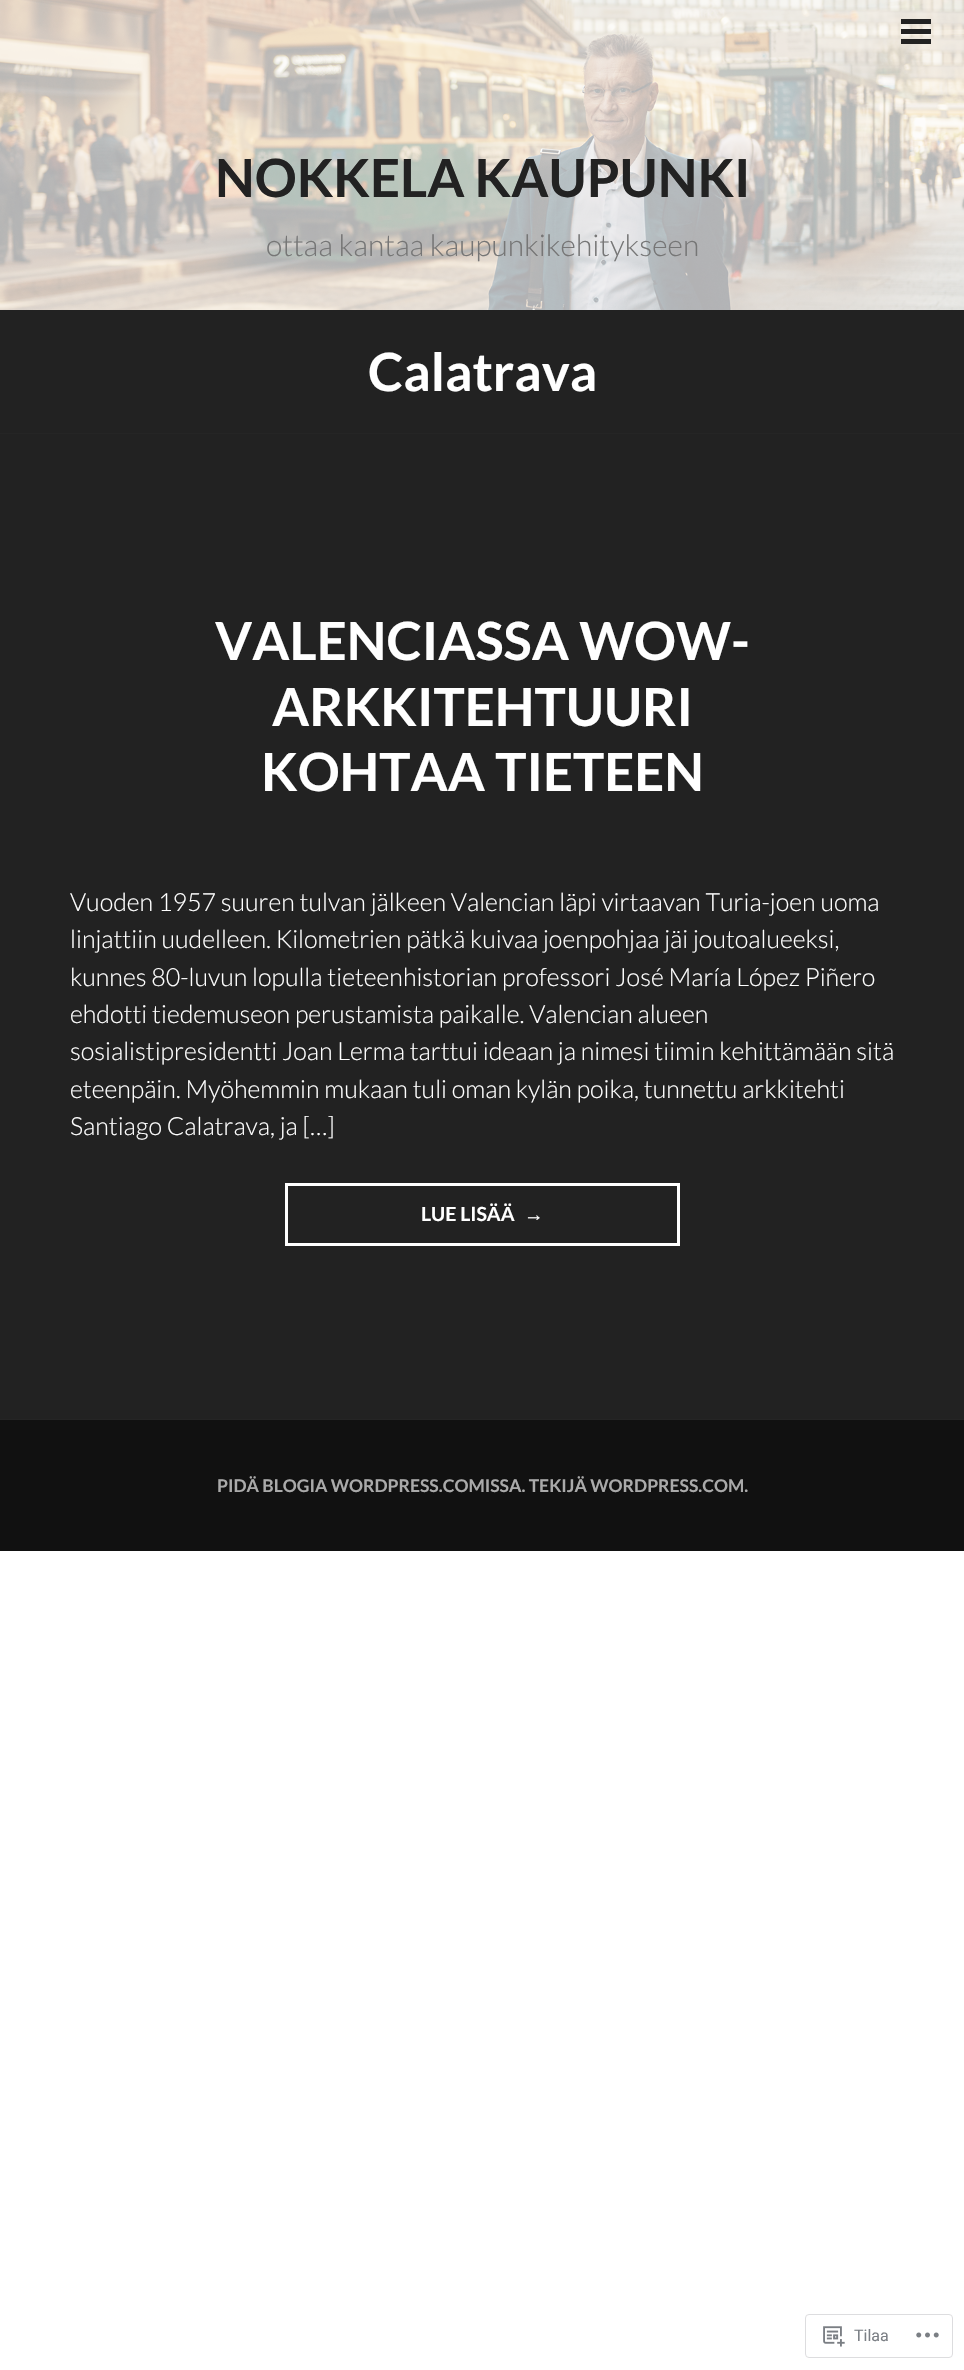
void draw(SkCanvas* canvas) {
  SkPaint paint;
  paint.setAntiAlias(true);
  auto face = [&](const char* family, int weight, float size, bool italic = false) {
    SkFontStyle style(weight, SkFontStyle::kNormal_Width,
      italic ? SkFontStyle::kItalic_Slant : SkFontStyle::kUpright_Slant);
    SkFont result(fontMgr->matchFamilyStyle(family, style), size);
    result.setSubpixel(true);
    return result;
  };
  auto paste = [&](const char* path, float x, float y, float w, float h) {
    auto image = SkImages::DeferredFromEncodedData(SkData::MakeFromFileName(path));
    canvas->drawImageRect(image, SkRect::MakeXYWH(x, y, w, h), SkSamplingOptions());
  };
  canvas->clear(0xffffffff);
  paste("img/1.png", 0, 0, 964, 310);
  {
    const struct { float x, y, w, h; SkColor color; } items[] = {
      {901, 29, 30, 5, 0xff222222},
      {901, 19, 30, 5, 0xff222222},
      {901, 39, 30, 5, 0xff222222},
      {0, 310, 964, 123, 0xff222222},
      {0, 433, 964, 1, 0xff252525},
      {0, 434, 964, 985, 0xff222222},
      {0, 1419, 964, 1, 0xff252525},
    };
    for (auto [x, y, w, h, color] : items) {
      paint.setColor(color);
      canvas->drawRect(SkRect::MakeXYWH(x, y, w, h), paint);
    }
  }
  paint.setStroke(true);
  paint.setStrokeWidth(3);
  paint.setColor(0xffffffff);
  canvas->drawRect(SkRect::MakeXYWH(286.5f, 1184.5f, 392, 60), paint);
  paint.setStroke(false);
  paint.setColor(0xff111111);
  canvas->drawRect(SkRect::MakeXYWH(0, 1420, 964, 131), paint);
  paint.setStroke(true);
  paint.setStrokeWidth(1);
  paint.setColor(0xffdddddf);
  canvas->drawRoundRect(SkRect::MakeXYWH(805.5f, 2314.5f, 147, 43), 3.5f, 3.5f, paint);
  paste("img/2.png", 823, 2326, 22, 21);
  paste("img/3.png", 916, 2332, 23, 6);
  auto f0 = face("Lato", 700, 52.5f);
  paint.setStroke(false);
  paint.setColor(0xff222222);
  canvas->drawString("NOKKELA KAUPUNKI", 215, 197, f0, paint);
  auto f1 = face("Lato", 300, 30);
  paint.setColor(0xff767676);
  canvas->drawString("ottaa kantaa kaupunkikehitykseen", 266, 256, f1, paint);
  paint.setColor(0xffffffff);
  {
    const struct { const char* s; float x, y; } items[] = {
      {"Calatrava", 368, 391},
      {"VALENCIASSA WOW-", 215, 660},
      {"ARKKITEHTUURI", 272, 726},
      {"KOHTAA TIETEEN", 261, 791},
    };
    for (auto [s, x, y] : items) {
      canvas->drawString(s, x, y, f0, paint);
    }
  }
  auto f2 = face("Lato", 300, 25);
  {
    const struct { const char* s; float x, y; } items[] = {
      {"Vuoden 1957 suuren tulvan jälkeen Valencian läpi virtaavan Turia-joen uoma", 70, 911},
      {"linjattiin uudelleen. Kilometrien pätkä kuivaa joenpohjaa jäi joutoalueeksi,", 70, 948},
      {"kunnes 80-luvun lopulla tieteenhistorian professori José María López Piñero", 70, 986},
      {"ehdotti tiedemuseon perustamista paikalle. Valencian alueen", 70, 1023},
      {"sosialistipresidentti Joan Lerma tarttui ideaan ja nimesi tiimin kehittämään sitä", 70, 1060},
      {"eteenpäin. Myöhemmin mukaan tuli oman kylän poika, tunnettu arkkitehti", 70, 1098},
      {"Santiago Calatrava, ja […]", 70, 1135},
    };
    for (auto [s, x, y] : items) {
      canvas->drawString(s, x, y, f2, paint);
    }
  }
  auto f3 = face("Lato", 700, 19.5f);
  canvas->drawString("LUE LISÄÄ", 421, 1221, f3, paint);
  auto f4 = face("Liberation Sans", 700, 19.5f);
  canvas->drawString("→", 524, 1221, f4, paint);
  auto f5 = face("Lato", 700, 17.5f);
  paint.setColor(0xffaaaaaa);
  canvas->drawString("PIDÄ BLOGIA WORDPRESS.COMISSA. TEKIJÄ WORDPRESS.COM.", 217, 1492, f5, paint);
  auto f6 = face("Roboto", 400, 16);
  paint.setColor(0xff7b7f85);
  canvas->drawString("Tilaa", 854, 2341, f6, paint);
}
